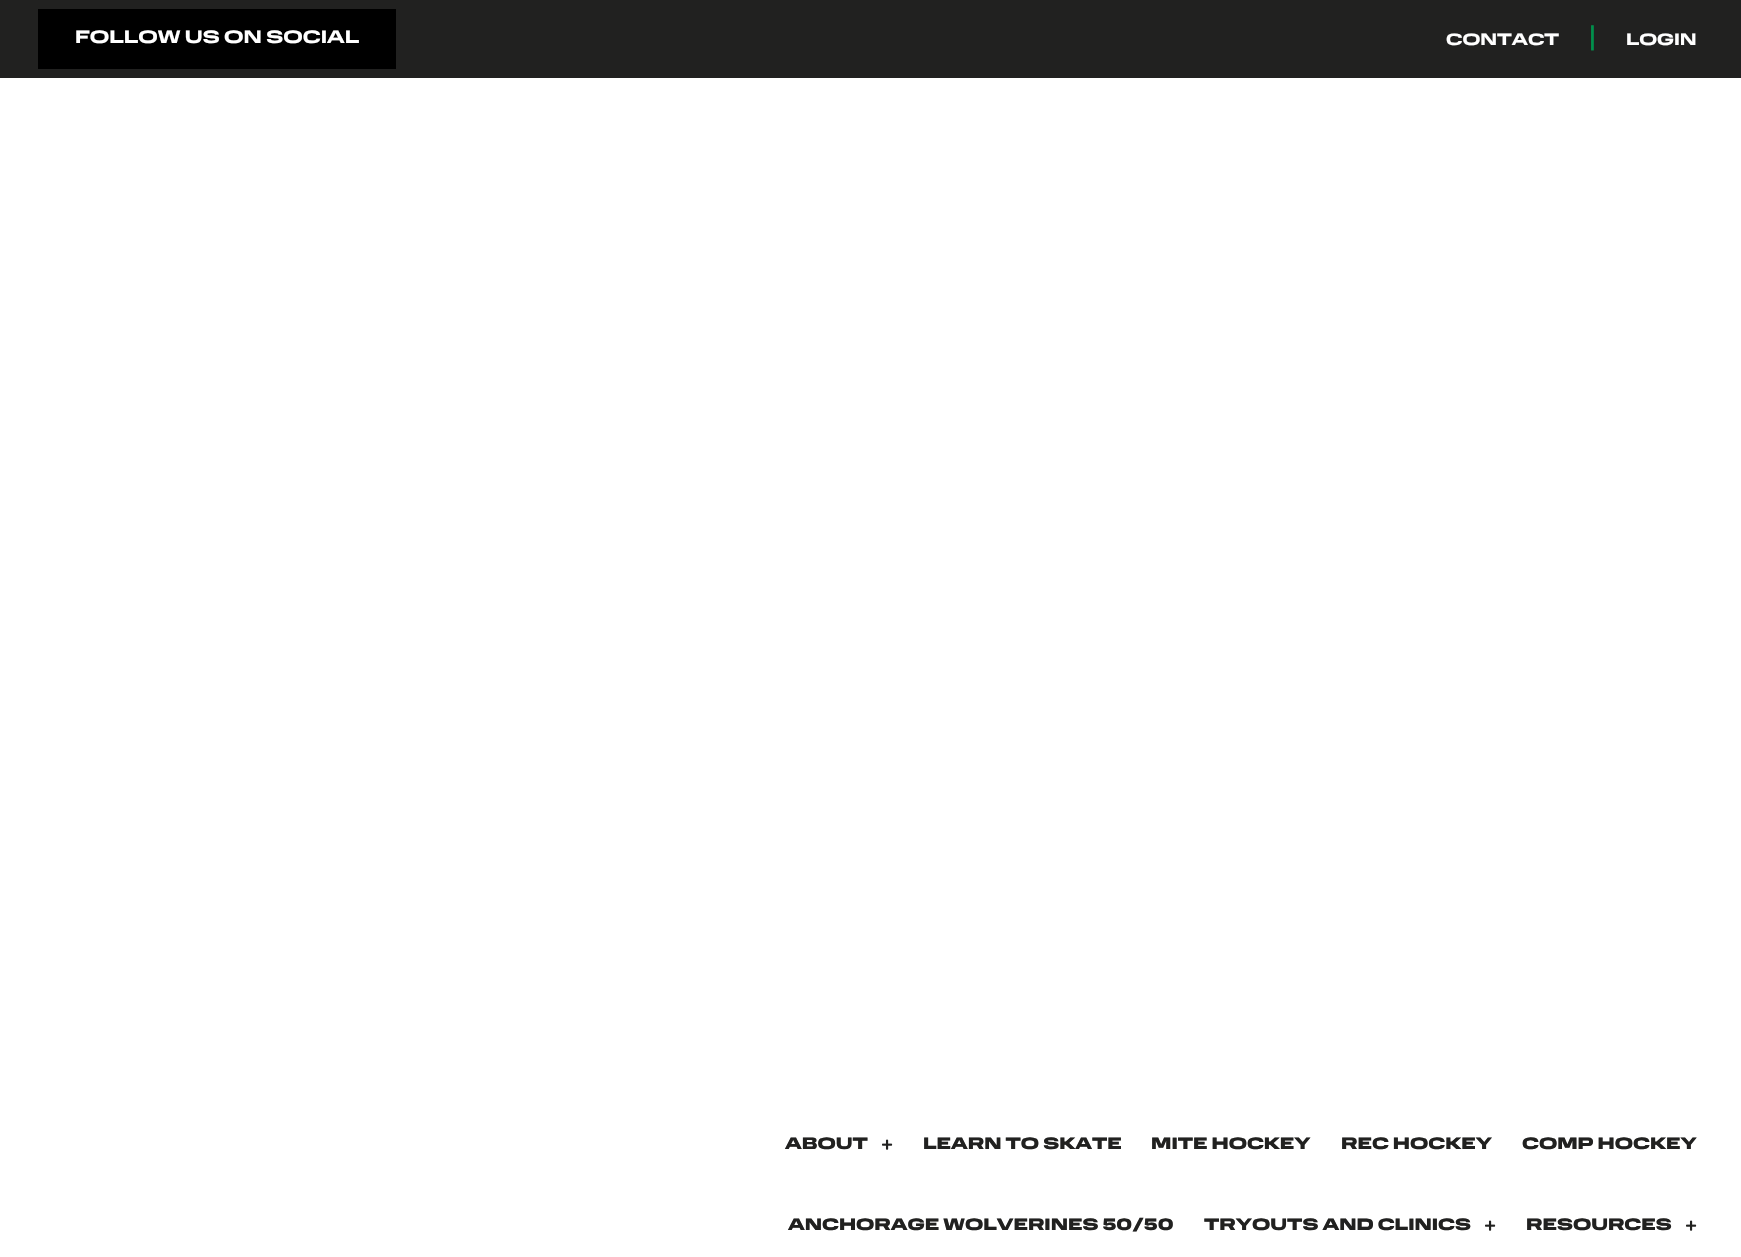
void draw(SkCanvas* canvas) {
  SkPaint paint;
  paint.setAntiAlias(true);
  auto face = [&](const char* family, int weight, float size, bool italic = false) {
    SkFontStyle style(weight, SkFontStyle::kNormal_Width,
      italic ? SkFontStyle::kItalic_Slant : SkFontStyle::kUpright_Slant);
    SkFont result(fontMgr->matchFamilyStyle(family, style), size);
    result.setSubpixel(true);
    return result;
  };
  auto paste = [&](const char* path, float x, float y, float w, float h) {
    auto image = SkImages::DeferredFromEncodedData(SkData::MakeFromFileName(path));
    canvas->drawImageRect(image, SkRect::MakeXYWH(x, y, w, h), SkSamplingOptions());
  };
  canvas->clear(0xff212120);
  paint.setColor(0xff000000);
  canvas->drawRect(SkRect::MakeXYWH(38, 9, 358, 60), paint);
  paint.setColor(0xffffffff);
  canvas->drawRect(SkRect::MakeXYWH(0, 78, 1741, 1179), paint);
  paste("img/1.png", 882, 1139, 11, 11);
  paste("img/1.png", 1485, 1220, 11, 11);
  paste("img/1.png", 1686, 1220, 11, 11);
  auto f0 = face("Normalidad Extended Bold", 700, 18);
  canvas->drawString("FOLLOW US ON SOCIAL", 75, 43, f0, paint);
  auto f1 = face("Normalidad Extended Bold", 700, 16.5f);
  canvas->drawString("CONTACT", 1446, 45, f1, paint);
  auto f2 = face("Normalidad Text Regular", 400, 27);
  paint.setColor(0xff00904c);
  canvas->drawString("|", 1589, 45, f2, paint);
  paint.setColor(0xffffffff);
  canvas->drawString("LOGIN", 1626, 45, f1, paint);
  auto f3 = face("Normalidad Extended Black", 900, 16.5f);
  paint.setColor(0xff212120);
  {
    const struct { const char* s; float x, y; } items[] = {
      {"ABOUT", 785, 1149},
      {"LEARN TO SKATE", 923, 1149},
      {"MITE HOCKEY", 1151, 1149},
      {"REC HOCKEY", 1341, 1149},
      {"COMP HOCKEY", 1522, 1149},
      {"ANCHORAGE WOLVERINES 50/50", 788, 1230},
      {"TRYOUTS AND CLINICS", 1204, 1230},
      {"RESOURCES", 1526, 1230},
    };
    for (auto [s, x, y] : items) {
      canvas->drawString(s, x, y, f3, paint);
    }
  }
}
